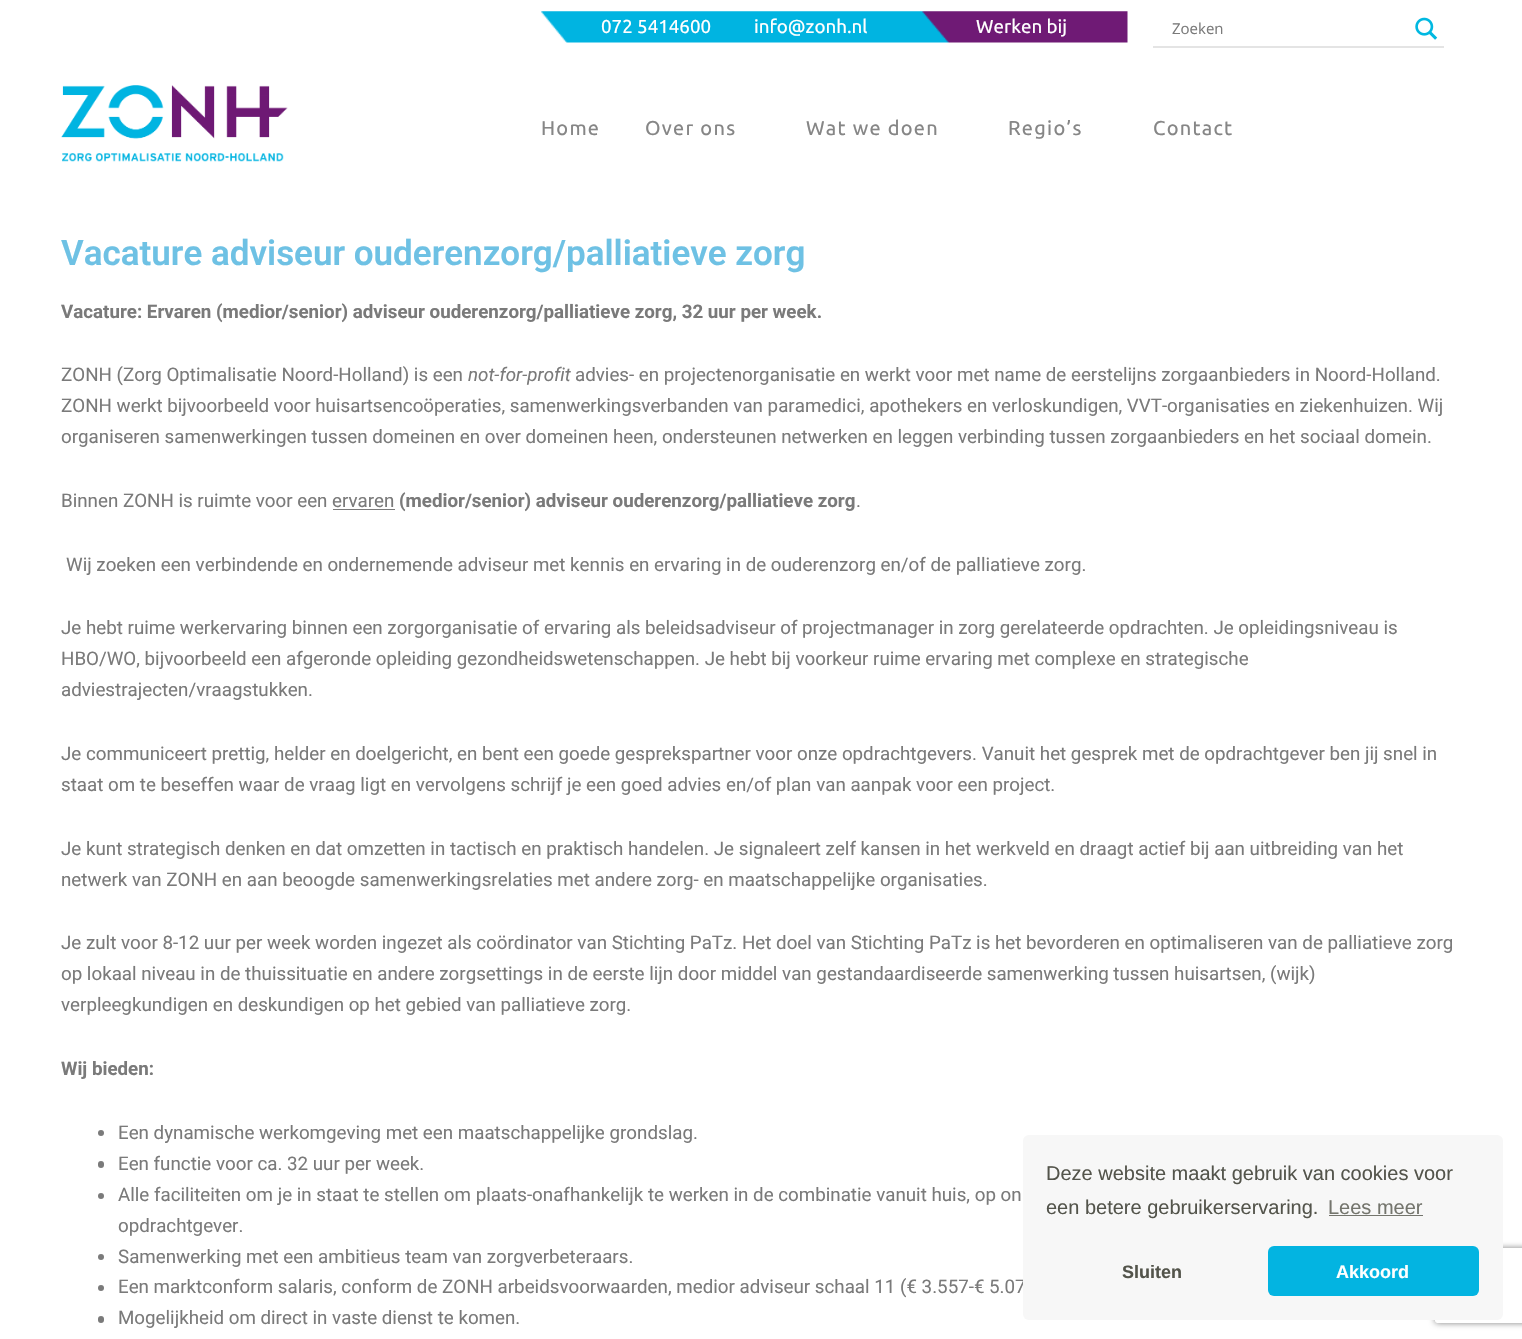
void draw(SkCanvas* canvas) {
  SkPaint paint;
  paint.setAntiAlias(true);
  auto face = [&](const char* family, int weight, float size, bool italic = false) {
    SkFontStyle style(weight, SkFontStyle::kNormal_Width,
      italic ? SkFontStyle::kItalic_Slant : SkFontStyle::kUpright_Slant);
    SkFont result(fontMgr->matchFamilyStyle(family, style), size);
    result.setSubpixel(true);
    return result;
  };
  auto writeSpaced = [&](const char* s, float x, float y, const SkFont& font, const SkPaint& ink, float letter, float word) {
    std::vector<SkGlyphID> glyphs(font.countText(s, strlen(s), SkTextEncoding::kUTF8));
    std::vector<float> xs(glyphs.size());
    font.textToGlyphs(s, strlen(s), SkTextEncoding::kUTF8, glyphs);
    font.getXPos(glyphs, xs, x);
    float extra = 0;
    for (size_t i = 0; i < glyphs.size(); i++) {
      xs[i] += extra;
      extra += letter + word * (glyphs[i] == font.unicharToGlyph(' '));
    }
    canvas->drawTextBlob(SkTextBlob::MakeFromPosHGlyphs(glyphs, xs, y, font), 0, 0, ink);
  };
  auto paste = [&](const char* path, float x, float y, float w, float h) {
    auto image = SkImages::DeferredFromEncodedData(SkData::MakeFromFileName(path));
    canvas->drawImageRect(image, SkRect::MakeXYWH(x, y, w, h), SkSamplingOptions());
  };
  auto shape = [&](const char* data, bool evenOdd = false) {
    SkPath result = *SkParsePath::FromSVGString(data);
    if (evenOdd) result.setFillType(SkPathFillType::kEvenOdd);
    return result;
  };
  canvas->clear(0xffffffff);
  paste("img/1.png", 541, 11, 587, 32);
  paint.setColor(0xffe4e4e4);
  canvas->drawPath(shape("M1153 46V48H1444V13V46Z"), paint);
  paste("img/2.png", 1415, 17, 23, 23);
  paste("img/3.png", 61, 85, 227, 77);
  paint.setColor(0xff7a7a7a);
  canvas->drawRect(SkRect::MakeXYWH(333, 509, 62, 1), paint);
  canvas->drawCircle(101, 1133, 3, paint);
  canvas->drawRoundRect(SkRect::MakeXYWH(98, 1161, 6, 7), 3, 3, paint);
  canvas->drawCircle(101, 1196, 3, paint);
  canvas->drawCircle(101, 1257, 3, paint);
  canvas->drawCircle(101, 1288, 3, paint);
  canvas->drawRoundRect(SkRect::MakeXYWH(98, 1316, 6, 7), 3, 3, paint);
  canvas->save();
  canvas->clipPath(shape("M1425 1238H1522V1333H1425ZM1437.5 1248H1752.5C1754 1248 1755 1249 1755 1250.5V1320.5C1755 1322 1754 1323 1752.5 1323H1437.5C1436 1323 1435 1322 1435 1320.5V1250.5C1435 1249 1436 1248 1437.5 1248Z", true), true);
  paint.setColor(0xff808080);
  paint.setMaskFilter(SkMaskFilter::MakeBlur(kNormal_SkBlurStyle, 3));
  canvas->drawRoundRect(SkRect::MakeXYWH(1435, 1248, 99, 75), 2.5f, 2.5f, paint);
  paint.setMaskFilter(nullptr);
  canvas->restore();
  auto f0 = face("Ubuntu", 400, 18.75f);
  paint.setColor(0xffffffff);
  {
    const struct { const char* s; float x, y; } items[] = {
      {"072 5414600", 601, 33},
      {"info@zonh.nl", 754, 33},
      {"Werken bij", 976, 33},
    };
    for (auto [s, x, y] : items) {
      canvas->drawString(s, x, y, f0, paint);
    }
  }
  auto f1 = face("Open Sans", 400, 15);
  paint.setColor(0xff7a7a7a);
  canvas->drawString("Zoeken", 1172, 34, f1, paint);
  auto f2 = face("Ubuntu", 400, 20);
  paint.setColor(0xff868686);
  {
    const struct { const char* s; float x, y; } items[] = {
      {"Home", 541, 135},
      {"Over ons", 645, 135},
      {"Wat we doen", 806, 135},
      {"Regio’s", 1008, 135},
      {"Contact", 1153, 135},
    };
    for (auto [s, x, y] : items) {
      writeSpaced(s, x, y, f2, paint, 1.25f, 0);
    }
  }
  auto f3 = face("Roboto", 600, 35);
  paint.setColor(0xff6ec1e4);
  canvas->drawString("Vacature adviseur ouderenzorg/palliatieve zorg", 61, 265, f3, paint);
  auto f4 = face("Roboto", 700, 18.75f);
  paint.setColor(0xff7a7a7a);
  canvas->drawString("Vacature: Ervaren (medior/senior) adviseur ouderenzorg/palliatieve zorg, 32 uur per week.", 61, 318, f4, paint);
  auto f5 = face("Roboto", 400, 18.75f);
  canvas->drawString("ZONH (Zorg Optimalisatie Noord-Holland) is een", 61, 381, f5, paint);
  auto f6 = face("Roboto", 400, 18.75f, true);
  canvas->drawString("not-for-profit", 468, 381, f6, paint);
  {
    const struct { const char* s; float x, y; } items[] = {
      {"advies- en projectenorganisatie en werkt voor met name de eerstelijns zorgaanbieders in Noord-Holland.", 575, 381},
      {"ZONH werkt bijvoorbeeld voor huisartsencoöperaties, samenwerkingsverbanden van paramedici, apothekers en verloskundigen, VVT-organisaties en ziekenhuizen. Wij", 61, 412},
      {"organiseren samenwerkingen tussen domeinen en over domeinen heen, ondersteunen netwerken en leggen verbinding tussen zorgaanbieders en het sociaal domein.", 61, 443},
      {"Binnen ZONH is ruimte voor een ervaren", 61, 507},
    };
    for (auto [s, x, y] : items) {
      canvas->drawString(s, x, y, f5, paint);
    }
  }
  canvas->drawString("(medior/senior) adviseur ouderenzorg/palliatieve zorg", 399, 507, f4, paint);
  {
    const struct { const char* s; float x, y; } items[] = {
      {".", 856, 507},
      {"Wij zoeken een verbindende en ondernemende adviseur met kennis en ervaring in de ouderenzorg en/of de palliatieve zorg.", 66, 571},
      {"Je hebt ruime werkervaring binnen een zorgorganisatie of ervaring als beleidsadviseur of projectmanager in zorg gerelateerde opdrachten. Je opleidingsniveau is", 61, 634},
      {"HBO/WO, bijvoorbeeld een afgeronde opleiding gezondheidswetenschappen. Je hebt bij voorkeur ruime ervaring met complexe en strategische", 61, 665},
      {"adviestrajecten/vraagstukken.", 61, 696},
      {"Je communiceert prettig, helder en doelgericht, en bent een goede gesprekspartner voor onze opdrachtgevers. Vanuit het gesprek met de opdrachtgever ben jij snel in", 61, 760},
      {"staat om te beseffen waar de vraag ligt en vervolgens schrijf je een goed advies en/of plan van aanpak voor een project.", 61, 791},
      {"Je kunt strategisch denken en dat omzetten in tactisch en praktisch handelen. Je signaleert zelf kansen in het werkveld en draagt actief bij aan uitbreiding van het", 61, 855},
      {"netwerk van ZONH en aan beoogde samenwerkingsrelaties met andere zorg- en maatschappelijke organisaties.", 61, 886},
      {"Je zult voor 8-12 uur per week worden ingezet als coördinator van Stichting PaTz. Het doel van Stichting PaTz is het bevorderen en optimaliseren van de palliatieve zorg", 61, 949},
      {"op lokaal niveau in de thuissituatie en andere zorgsettings in de eerste lijn door middel van gestandaardiseerde samenwerking tussen huisartsen, (wijk)", 61, 980},
      {"verpleegkundigen en deskundigen op het gebied van palliatieve zorg.", 61, 1011},
    };
    for (auto [s, x, y] : items) {
      canvas->drawString(s, x, y, f5, paint);
    }
  }
  canvas->drawString("Wij bieden:", 61, 1075, f4, paint);
  {
    const struct { const char* s; float x, y; } items[] = {
      {"Een dynamische werkomgeving met een maatschappelijke grondslag.", 118, 1139},
      {"Een functie voor ca. 32 uur per week.", 118, 1170},
      {"Alle faciliteiten om je in staat te stellen om plaats-onafhankelijk te werken in de combinatie vanuit huis, op on", 118, 1201},
      {"opdrachtgever.", 118, 1232},
      {"Samenwerking met een ambitieus team van zorgverbeteraars.", 118, 1263},
      {"Een marktconform salaris, conform de ZONH arbeidsvoorwaarden, medior adviseur schaal 11 (€ 3.557-€ 5.07", 118, 1293},
      {"Mogelijkheid om direct in vaste dienst te komen.", 118, 1324},
    };
    for (auto [s, x, y] : items) {
      canvas->drawString(s, x, y, f5, paint);
    }
  }
  paint.setColor(0xfff7f7f7);
  canvas->drawRoundRect(SkRect::MakeXYWH(1023, 1135, 480, 185), 6, 6, paint);
  auto f7 = face("Liberation Sans", 400, 20);
  paint.setColor(0xff53544b);
  canvas->drawString("Deze website maakt gebruik van cookies voor", 1046, 1180, f7, paint);
  canvas->drawString("een betere gebruikerservaring.", 1046, 1214, f7, paint);
  paint.setColor(0xff74756d);
  canvas->drawString("Lees meer", 1328, 1214, f7, paint);
  canvas->drawRect(SkRect::MakeXYWH(1329, 1215, 94, 1), paint);
  auto f8 = face("Liberation Sans", 700, 18);
  paint.setColor(0xff53544b);
  canvas->drawString("Sluiten", 1122, 1278, f8, paint);
  paint.setColor(0xff03b4e1);
  canvas->drawRoundRect(SkRect::MakeXYWH(1268, 1246, 211, 50), 6, 6, paint);
  paint.setColor(0xffffffff);
  canvas->drawString("Akkoord", 1336, 1278, f8, paint);
}
